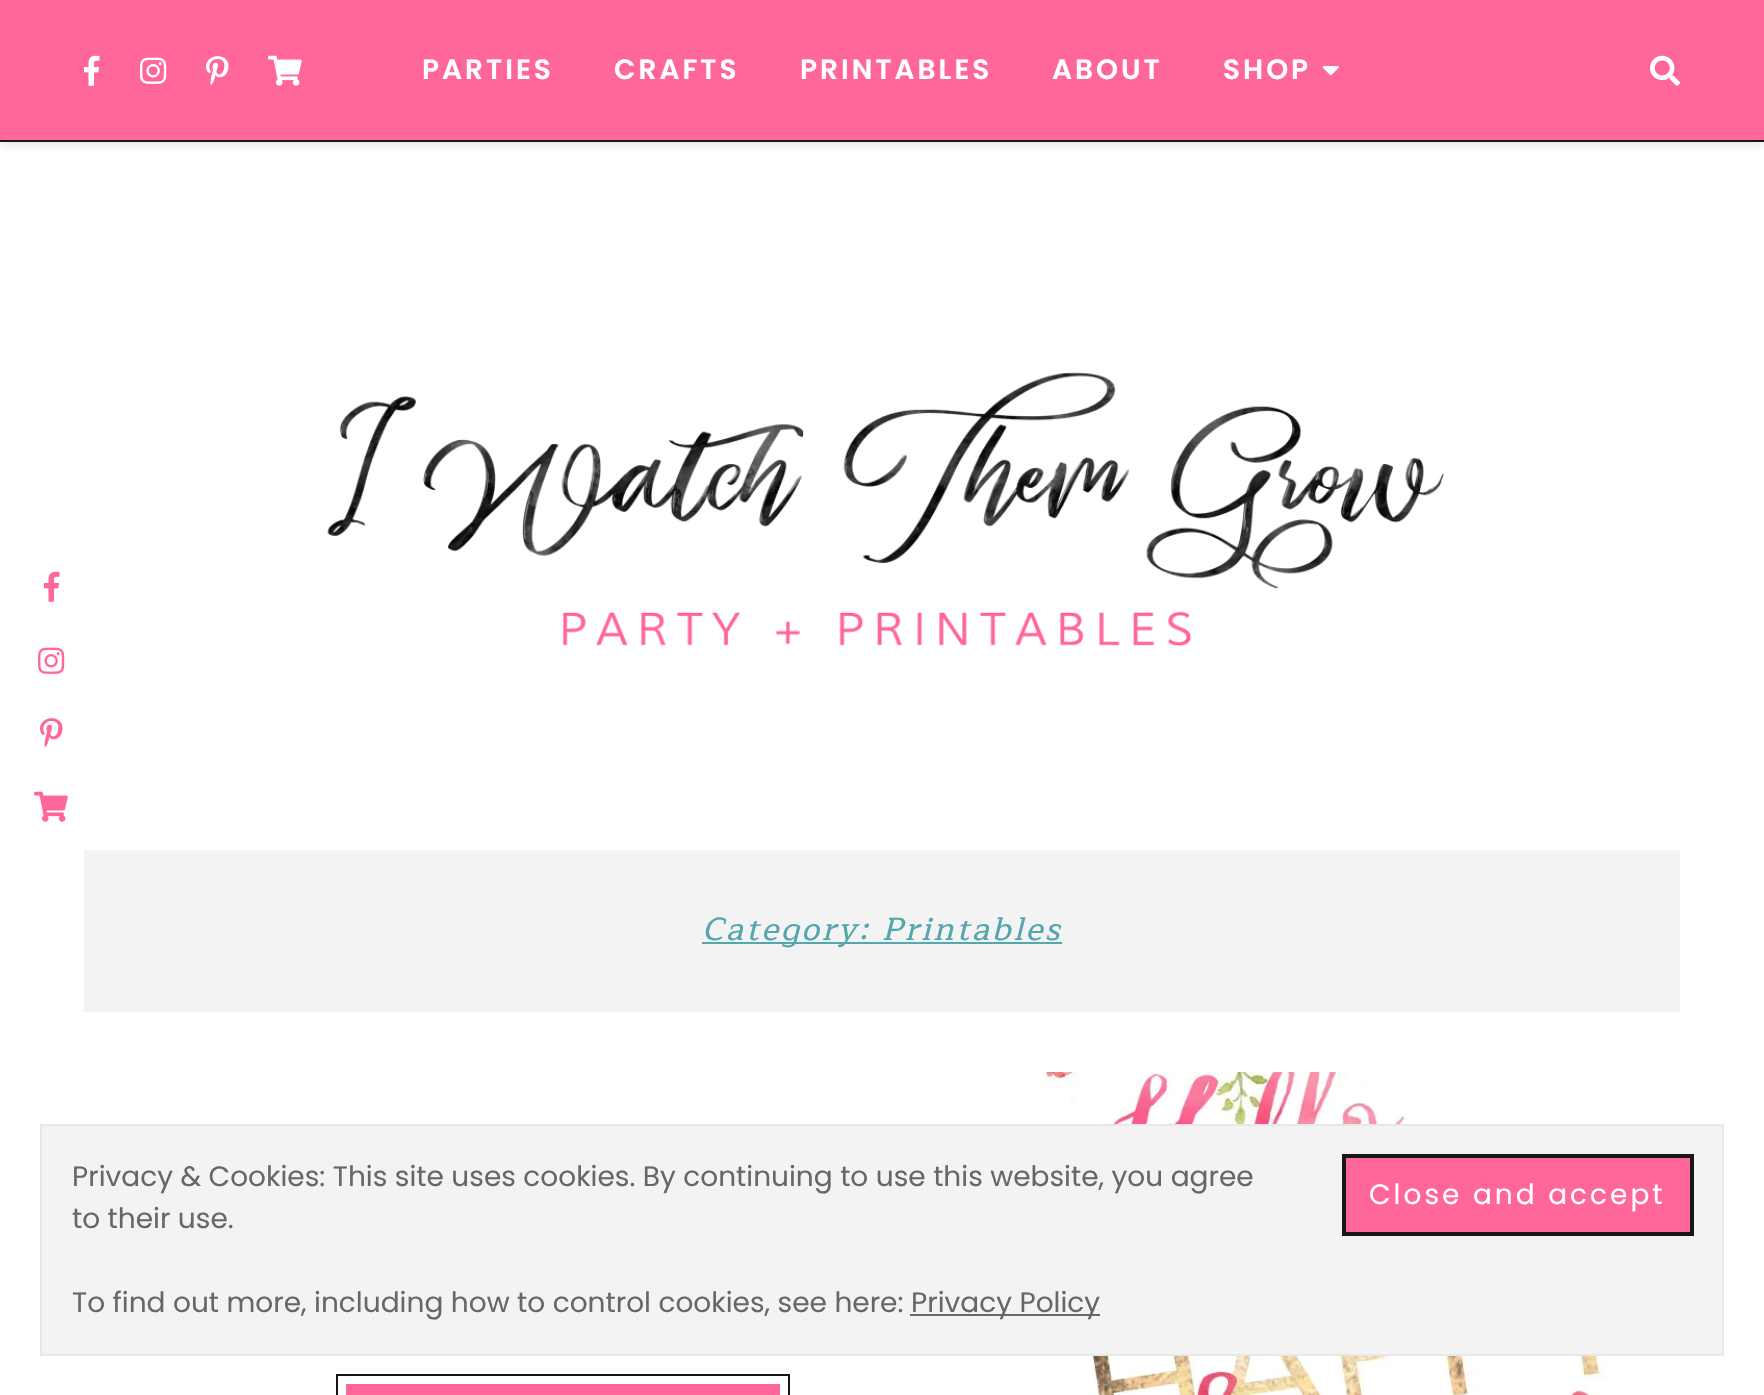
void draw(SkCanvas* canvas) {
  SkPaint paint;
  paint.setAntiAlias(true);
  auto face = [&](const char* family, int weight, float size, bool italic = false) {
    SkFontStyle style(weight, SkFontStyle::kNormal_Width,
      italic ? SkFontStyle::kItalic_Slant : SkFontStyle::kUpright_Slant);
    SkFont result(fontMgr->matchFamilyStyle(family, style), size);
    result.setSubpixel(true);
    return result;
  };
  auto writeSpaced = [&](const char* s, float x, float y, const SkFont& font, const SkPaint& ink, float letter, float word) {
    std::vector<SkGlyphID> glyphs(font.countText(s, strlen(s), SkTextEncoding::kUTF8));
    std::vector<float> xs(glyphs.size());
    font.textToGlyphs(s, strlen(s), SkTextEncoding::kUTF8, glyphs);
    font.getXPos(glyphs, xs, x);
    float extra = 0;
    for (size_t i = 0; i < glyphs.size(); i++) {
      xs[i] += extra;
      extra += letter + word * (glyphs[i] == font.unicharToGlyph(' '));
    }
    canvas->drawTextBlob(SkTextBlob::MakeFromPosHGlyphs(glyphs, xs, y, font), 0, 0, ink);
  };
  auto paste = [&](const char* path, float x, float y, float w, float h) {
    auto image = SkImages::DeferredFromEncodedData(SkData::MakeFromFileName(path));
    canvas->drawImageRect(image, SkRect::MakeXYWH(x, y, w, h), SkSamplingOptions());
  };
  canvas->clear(0xffffffff);
  paste("img/1.png", 44, 571, 16, 31);
  paste("img/2.png", 38, 647, 27, 27);
  paste("img/3.png", 40, 718, 23, 30);
  paste("img/4.png", 34, 791, 34, 31);
  paint.setColor(0x80bebebe);
  paint.setMaskFilter(SkMaskFilter::MakeBlur(kNormal_SkBlurStyle, 5));
  canvas->drawRect(SkRect::MakeXYWH(0, 2, 1764, 142), paint);
  paint.setMaskFilter(nullptr);
  paint.setColor(0xffff6699);
  canvas->drawRect(SkRect::MakeXYWH(0, 0, 1764, 140), paint);
  paint.setColor(0xff171717);
  canvas->drawRect(SkRect::MakeXYWH(0, 140, 1764, 2), paint);
  paste("img/5.png", 84, 55, 16, 31);
  paste("img/6.png", 140, 57, 27, 27);
  paste("img/7.png", 206, 56, 23, 30);
  paste("img/8.png", 268, 55, 34, 31);
  paste("img/9.png", 1322, 66, 17, 10);
  paste("img/10.png", 1650, 55, 30, 31);
  paste("img/11.png", 327, 372, 1117, 275);
  {
    const struct { float x, y, w, h; SkColor color; } items[] = {
      {84, 850, 1596, 162, 0xfff3f3f3},
      {702, 942, 360, 2, 0xff54a7ad},
      {346, 1384, 434, 11, 0xffff6699},
    };
    for (auto [x, y, w, h, color] : items) {
      paint.setColor(color);
      canvas->drawRect(SkRect::MakeXYWH(x, y, w, h), paint);
    }
  }
  paint.setStroke(true);
  paint.setStrokeWidth(2);
  paint.setColor(0xff171717);
  canvas->drawRect(SkRect::MakeXYWH(337, 1375, 452, 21), paint);
  paste("img/12.png", 1042, 1072, 638, 323);
  paint.setStroke(false);
  paint.setColor(0xfff3f3f3);
  canvas->drawRect(SkRect::MakeXYWH(41, 1125, 1682, 230), paint);
  paint.setStroke(true);
  paint.setColor(0xffe8e8e8);
  canvas->drawRect(SkRect::MakeXYWH(41, 1125, 1682, 230), paint);
  paint.setStroke(false);
  paint.setColor(0xffff6699);
  canvas->drawRect(SkRect::MakeXYWH(1345, 1157, 346, 76), paint);
  paint.setStroke(true);
  paint.setColor(0xff171717);
  canvas->drawRect(SkRect::MakeXYWH(1345, 1157, 346, 76), paint);
  canvas->drawRect(SkRect::MakeXYWH(1343, 1155, 350, 80), paint);
  paint.setStroke(false);
  paint.setColor(0xff676767);
  canvas->drawRect(SkRect::MakeXYWH(910, 1314, 190, 2), paint);
  auto f0 = face("Poppins", 600, 28);
  paint.setColor(0xffffffff);
  {
    const struct { const char* s; float x, y; } items[] = {
      {"PARTIES", 422, 79},
      {"CRAFTS", 614, 79},
      {"PRINTABLES", 800, 79},
      {"ABOUT", 1052, 79},
      {"SHOP", 1223, 79},
    };
    for (auto [s, x, y] : items) {
      writeSpaced(s, x, y, f0, paint, 3, 0);
    }
  }
  auto f1 = face("Maitree", 500, 32, true);
  paint.setColor(0xff54a7ad);
  writeSpaced("Category: Printables", 702, 940, f1, paint, 2.6f, 0);
  auto f2 = face("Poppins", 400, 28);
  paint.setColor(0xff676767);
  canvas->drawString("Privacy & Cookies: This site uses cookies. By continuing to use this website, you agree", 72, 1186, f2, paint);
  paint.setColor(0xffffffff);
  writeSpaced("Close and accept", 1369, 1204, f2, paint, 3, 0);
  paint.setColor(0xff676767);
  {
    const struct { const char* s; float x, y; } items[] = {
      {"to their use.", 72, 1228},
      {"To find out more, including how to control cookies, see here:", 72, 1312},
      {"Privacy Policy", 911, 1312},
    };
    for (auto [s, x, y] : items) {
      canvas->drawString(s, x, y, f2, paint);
    }
  }
}
